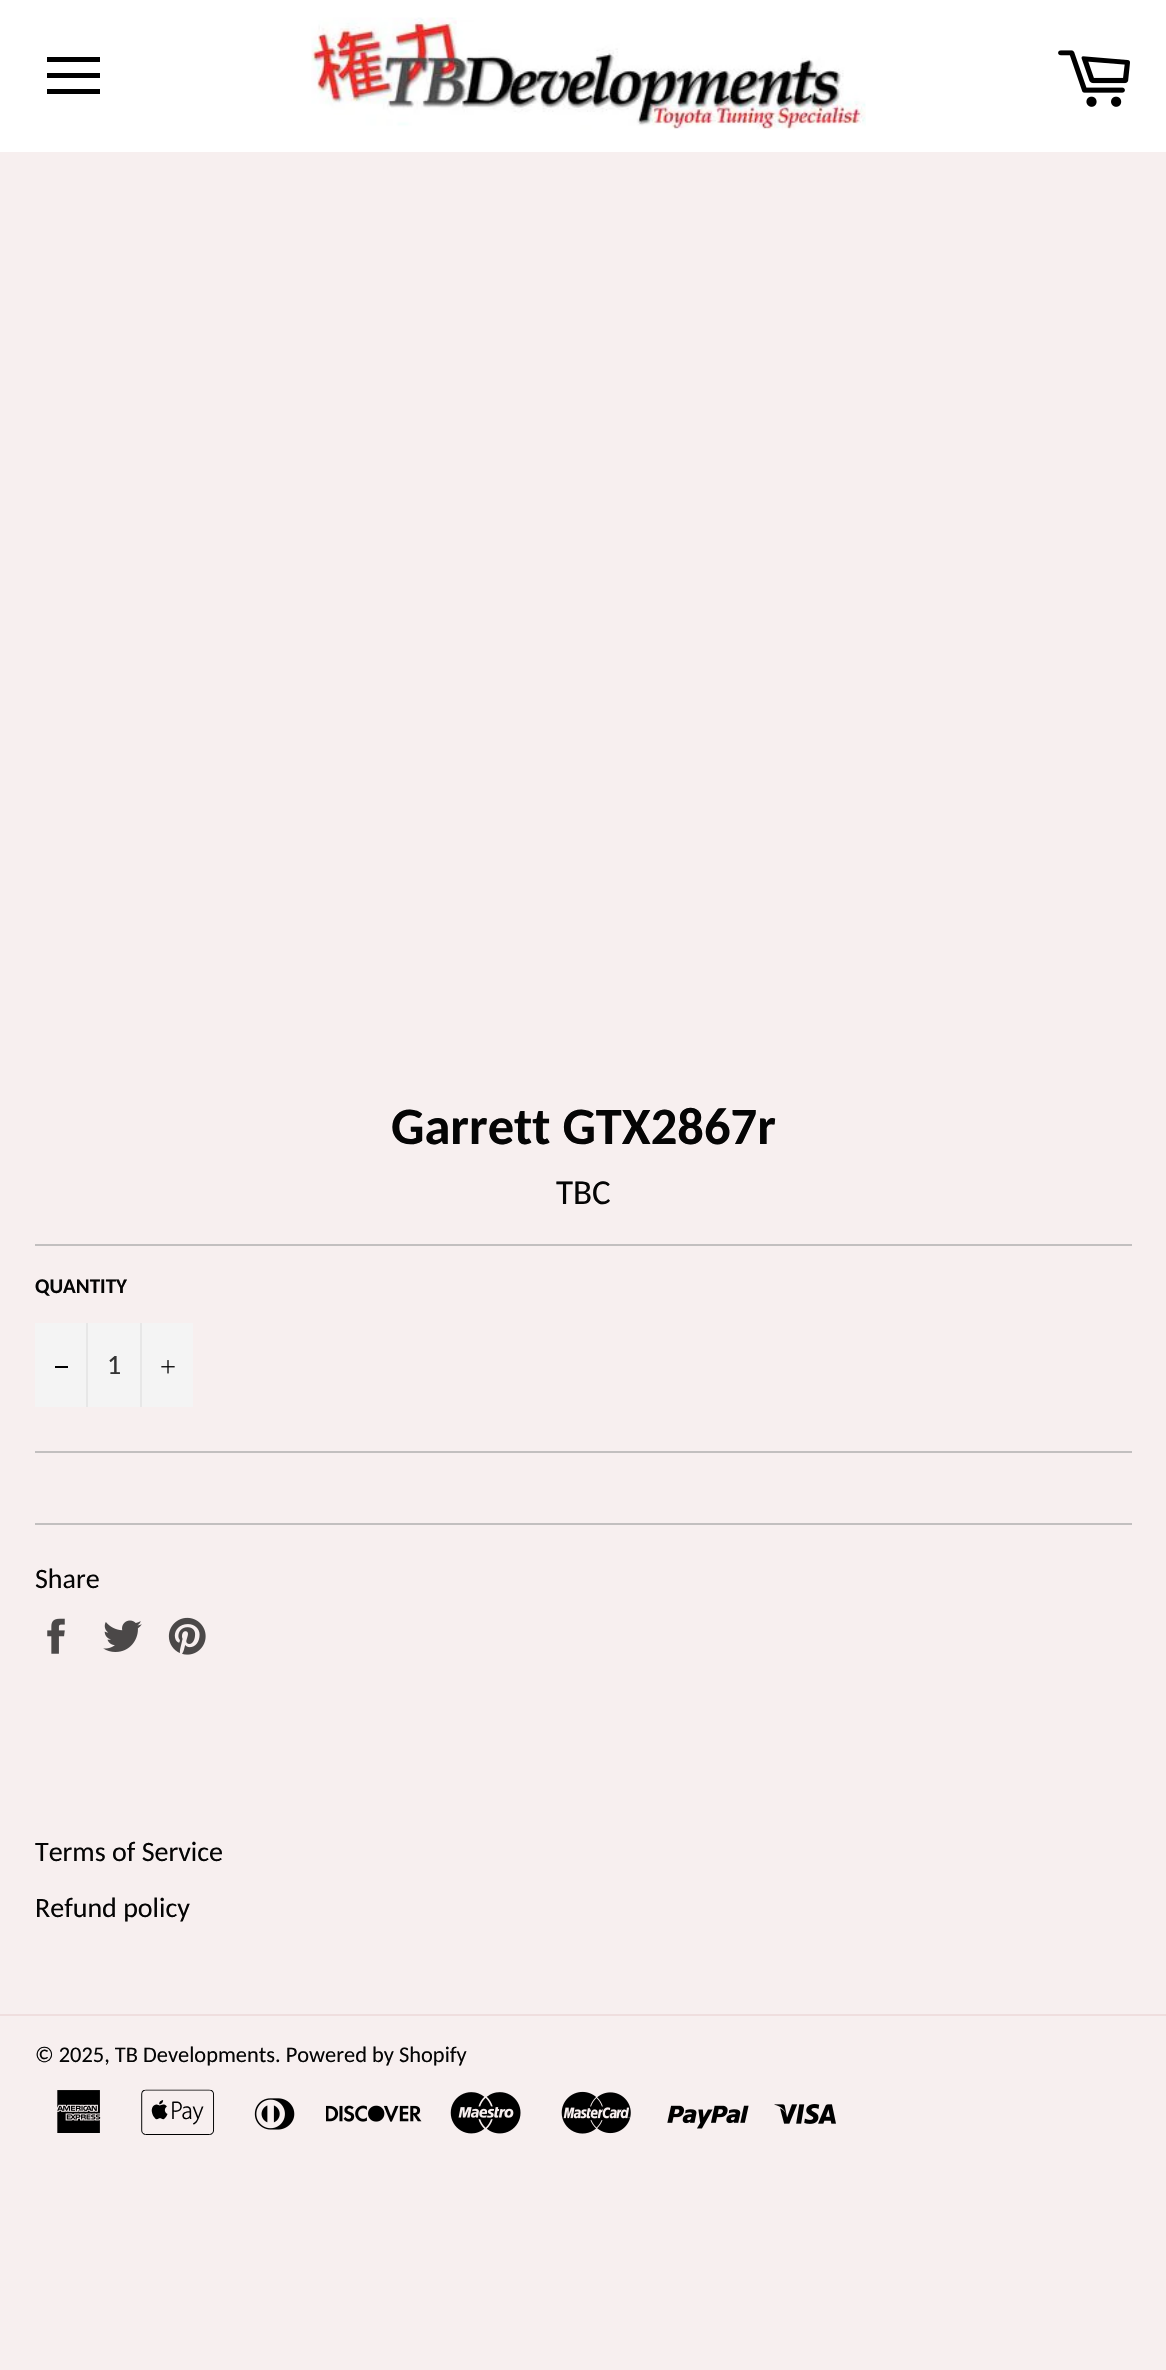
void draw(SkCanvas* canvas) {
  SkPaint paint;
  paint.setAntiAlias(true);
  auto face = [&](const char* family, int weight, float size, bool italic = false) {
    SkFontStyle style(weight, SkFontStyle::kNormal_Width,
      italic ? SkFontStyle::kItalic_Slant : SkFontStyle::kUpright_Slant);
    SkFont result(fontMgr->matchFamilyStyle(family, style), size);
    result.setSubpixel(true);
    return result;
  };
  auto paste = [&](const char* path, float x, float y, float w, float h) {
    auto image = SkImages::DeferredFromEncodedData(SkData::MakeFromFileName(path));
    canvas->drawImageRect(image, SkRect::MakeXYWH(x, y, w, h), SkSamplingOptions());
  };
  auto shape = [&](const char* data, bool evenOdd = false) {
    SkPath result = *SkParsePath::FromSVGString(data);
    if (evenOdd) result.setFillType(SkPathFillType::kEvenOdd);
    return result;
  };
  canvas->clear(0xfff7efef);
  paint.setColor(0xffffffff);
  canvas->drawRect(SkRect::MakeXYWH(0, 0, 1166, 152), paint);
  paint.setColor(0xff000000);
  canvas->drawPath(shape("M47 73H100V78H47ZM47 57H100V62H47ZM47 89H100V94H47Z"), paint);
  paste("img/1.png", 311, 17, 555, 113);
  paste("img/2.png", 1058, 50, 72, 57);
  {
    const struct { float x, y, w, h; SkColor color; } items[] = {
      {35, 1244, 1097, 2, 0xffc2bfbf},
      {35, 1323, 158, 84, 0xfff4f4f4},
      {86, 1323, 2, 84, 0xffe7e7e7},
      {55, 1366, 13, 2, 0xff000000},
      {140, 1323, 2, 84, 0xffe7e7e7},
    };
    for (auto [x, y, w, h, color] : items) {
      paint.setColor(color);
      canvas->drawRect(SkRect::MakeXYWH(x, y, w, h), paint);
    }
  }
  paste("img/3.png", 161, 1360, 14, 14);
  paint.setColor(0xffc2bfbf);
  canvas->drawRect(SkRect::MakeXYWH(35, 1451, 1097, 2), paint);
  canvas->drawRect(SkRect::MakeXYWH(35, 1523, 1097, 2), paint);
  paste("img/4.png", 47, 1618, 18, 36);
  paste("img/5.png", 103, 1620, 39, 32);
  paste("img/6.png", 168, 1617, 38, 38);
  paint.setColor(0xffefdede);
  canvas->drawRect(SkRect::MakeXYWH(0, 2014, 1166, 2), paint);
  paste("img/7.png", 57, 2090, 44, 43);
  paste("img/8.png", 141, 2089, 74, 46);
  paste("img/9.png", 254, 2098, 41, 32);
  paste("img/10.png", 326, 2105, 96, 17);
  paste("img/11.png", 450, 2092, 71, 42);
  paste("img/12.png", 561, 2091, 70, 43);
  paste("img/13.png", 667, 2105, 82, 24);
  paste("img/14.png", 774, 2104, 62, 20);
  auto f0 = face("Carlito", 700, 52.5f);
  paint.setColor(0xff050505);
  canvas->drawString("Garrett GTX2867r", 391, 1144, f0, paint);
  auto f1 = face("Carlito", 400, 35);
  canvas->drawString("TBC", 556, 1204, f1, paint);
  auto f2 = face("Carlito", 700, 21);
  canvas->drawString("QUANTITY", 35, 1293, f2, paint);
  auto f3 = face("Carlito", 400, 28);
  paint.setColor(0xff333333);
  canvas->drawString("1", 107, 1374, f3, paint);
  paint.setColor(0xff050505);
  {
    const struct { const char* s; float x, y; } items[] = {
      {"Share", 35, 1588},
      {"Terms of Service", 35, 1861},
      {"Refund policy", 35, 1917},
    };
    for (auto [s, x, y] : items) {
      canvas->drawString(s, x, y, f3, paint);
    }
  }
  auto f4 = face("Carlito", 400, 22.4f);
  canvas->drawString("© 2025, TB Developments. Powered by Shopify", 35, 2062, f4, paint);
}
